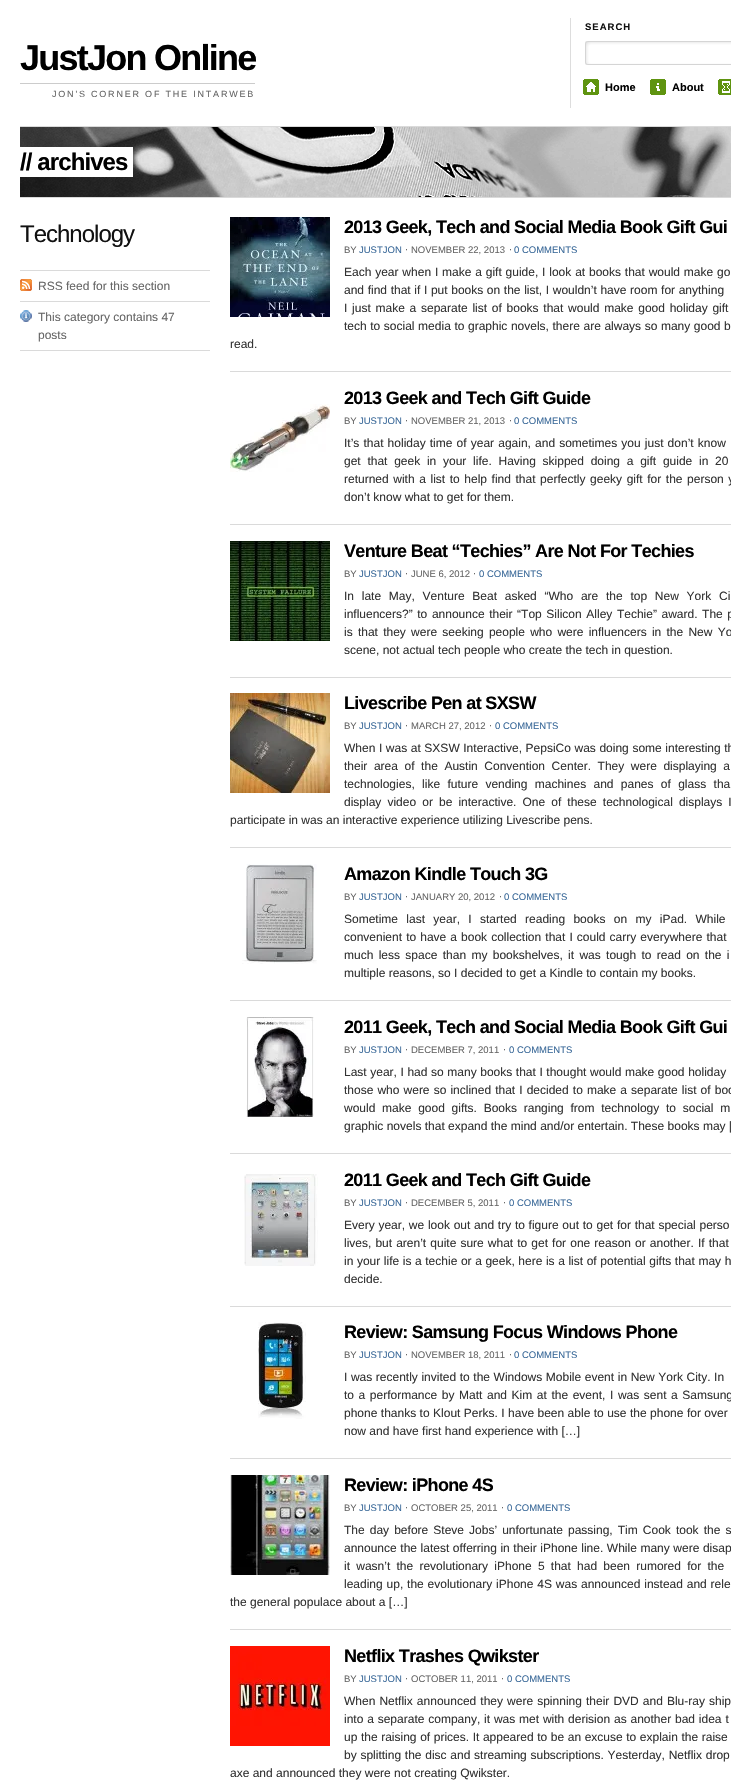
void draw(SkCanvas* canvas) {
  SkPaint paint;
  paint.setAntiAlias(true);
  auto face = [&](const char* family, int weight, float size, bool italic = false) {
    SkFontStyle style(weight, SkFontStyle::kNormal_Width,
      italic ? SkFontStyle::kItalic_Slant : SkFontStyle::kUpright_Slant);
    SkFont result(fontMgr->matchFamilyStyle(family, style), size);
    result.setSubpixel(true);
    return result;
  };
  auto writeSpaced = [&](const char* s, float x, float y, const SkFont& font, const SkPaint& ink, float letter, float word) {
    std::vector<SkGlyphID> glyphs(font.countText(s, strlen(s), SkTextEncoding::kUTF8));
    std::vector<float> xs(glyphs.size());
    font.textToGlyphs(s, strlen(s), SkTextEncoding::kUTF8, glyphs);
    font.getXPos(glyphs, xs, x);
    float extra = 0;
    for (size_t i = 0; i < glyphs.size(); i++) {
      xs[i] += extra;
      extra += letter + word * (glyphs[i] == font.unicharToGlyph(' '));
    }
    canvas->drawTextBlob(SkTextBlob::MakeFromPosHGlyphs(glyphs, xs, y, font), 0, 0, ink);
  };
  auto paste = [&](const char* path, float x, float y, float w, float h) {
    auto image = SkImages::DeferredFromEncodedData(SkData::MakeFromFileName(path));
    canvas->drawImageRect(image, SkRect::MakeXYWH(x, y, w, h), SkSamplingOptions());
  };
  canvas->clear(0xffffffff);
  paint.setColor(0xffcccccc);
  canvas->drawRect(SkRect::MakeXYWH(20, 83, 235, 1), paint);
  paint.setColor(0xffdddddd);
  canvas->drawRect(SkRect::MakeXYWH(570, 18, 1, 90), paint);
  paste("img/1.png", 585, 41, 146, 24);
  paste("img/2.png", 583, 79, 16, 16);
  paste("img/3.png", 650, 79, 16, 16);
  paste("img/4.png", 718, 79, 13, 16);
  paste("img/5.png", 20, 127, 711, 70);
  {
    const struct { float x, y, w, h; SkColor color; } items[] = {
      {20, 126, 711, 1, 0xffdadada},
      {20, 197, 711, 1, 0xffdadada},
      {20, 147, 113, 30, 0xffffffff},
      {20, 270, 190, 1, 0xffdadada},
    };
    for (auto [x, y, w, h, color] : items) {
      paint.setColor(color);
      canvas->drawRect(SkRect::MakeXYWH(x, y, w, h), paint);
    }
  }
  paste("img/6.png", 20, 279, 12, 12);
  canvas->drawRect(SkRect::MakeXYWH(20, 301, 190, 1), paint);
  paste("img/7.png", 20, 310, 12, 12);
  canvas->drawRect(SkRect::MakeXYWH(20, 350, 190, 1), paint);
  canvas->drawRect(SkRect::MakeXYWH(230, 371, 501, 1), paint);
  paste("img/8.png", 230, 217, 100, 100);
  canvas->drawRect(SkRect::MakeXYWH(230, 524, 501, 1), paint);
  paste("img/9.png", 230, 404, 100, 68);
  canvas->drawRect(SkRect::MakeXYWH(230, 677, 501, 1), paint);
  paste("img/10.png", 230, 541, 100, 100);
  canvas->drawRect(SkRect::MakeXYWH(230, 847, 501, 1), paint);
  paste("img/11.png", 230, 693, 100, 100);
  canvas->drawRect(SkRect::MakeXYWH(230, 1000, 501, 1), paint);
  paste("img/12.png", 242, 864, 75, 100);
  canvas->drawRect(SkRect::MakeXYWH(230, 1153, 501, 1), paint);
  paste("img/13.png", 246, 1017, 68, 100);
  canvas->drawRect(SkRect::MakeXYWH(230, 1306, 501, 1), paint);
  paste("img/14.png", 244, 1174, 74, 92);
  canvas->drawRect(SkRect::MakeXYWH(230, 1458, 501, 1), paint);
  paste("img/15.png", 258, 1322, 48, 97);
  canvas->drawRect(SkRect::MakeXYWH(230, 1629, 501, 1), paint);
  paste("img/16.png", 230, 1475, 100, 100);
  paste("img/17.png", 230, 1646, 100, 100);
  auto f0 = face("Liberation Sans", 700, 36);
  paint.setColor(0xff000000);
  writeSpaced("JustJon Online", 20, 70, f0, paint, -1.75f, 0);
  auto f1 = face("Liberation Sans", 400, 9);
  paint.setColor(0xff666666);
  writeSpaced("JON'S CORNER OF THE INTARWEB", 52, 97, f1, paint, 1.8f, 0);
  auto f2 = face("Liberation Sans", 700, 9.5f);
  paint.setColor(0xff111111);
  writeSpaced("SEARCH", 585, 30, f2, paint, 1, 0);
  auto f3 = face("Liberation Sans", 700, 11);
  paint.setColor(0xff000000);
  canvas->drawString("Home", 605, 91, f3, paint);
  canvas->drawString("About", 672, 91, f3, paint);
  auto f4 = face("Liberation Sans", 700, 24);
  writeSpaced("// archives", 20, 170, f4, paint, -0.9f, 0);
  auto f5 = face("Liberation Sans", 400, 24);
  paint.setColor(0xff111111);
  writeSpaced("Technology", 20, 242, f5, paint, -1, 0);
  auto f6 = face("Liberation Sans", 400, 12);
  paint.setColor(0xff666666);
  {
    const struct { const char* s; float x, y; } items[] = {
      {"RSS feed for this section", 38, 290},
      {"This category contains 47", 38, 321},
      {"posts", 38, 339},
    };
    for (auto [s, x, y] : items) {
      canvas->drawString(s, x, y, f6, paint);
    }
  }
  auto f7 = face("Liberation Sans", 700, 18);
  paint.setColor(0xff000000);
  writeSpaced("2013 Geek, Tech and Social Media Book Gift Gui", 344, 233, f7, paint, -0.65f, 0);
  auto f8 = face("Liberation Sans", 400, 9.5f);
  paint.setColor(0xff666666);
  canvas->drawString("BY", 344, 253, f8, paint);
  paint.setColor(0xff3a6999);
  canvas->drawString("JUSTJON", 359, 253, f8, paint);
  auto f9 = face("DejaVu Sans", 400, 9.5f);
  paint.setColor(0xff666666);
  canvas->drawString("⋅", 405, 253, f9, paint);
  canvas->drawString("NOVEMBER 22, 2013", 411, 253, f8, paint);
  canvas->drawString("⋅", 509, 253, f9, paint);
  paint.setColor(0xff3a6999);
  canvas->drawString("0 COMMENTS", 514, 253, f8, paint);
  paint.setColor(0xff333333);
  writeSpaced("Each year when I make a gift guide, I look at books that would make go", 344, 276, f6, paint, 0, 0.5f);
  writeSpaced("and find that if I put books on the list, I wouldn’t have room for anything", 344, 294, f6, paint, 0, 0.3f);
  writeSpaced("I just make a separate list of books that would make good holiday gift", 344, 312, f6, paint, 0, 1.4f);
  writeSpaced("tech to social media to graphic novels, there are always so many good b", 344, 330, f6, paint, 0, 0.25f);
  canvas->drawString("read.", 230, 348, f6, paint);
  paint.setColor(0xff000000);
  writeSpaced("2013 Geek and Tech Gift Guide", 344, 404, f7, paint, -0.65f, 0);
  paint.setColor(0xff666666);
  canvas->drawString("BY", 344, 424, f8, paint);
  paint.setColor(0xff3a6999);
  canvas->drawString("JUSTJON", 359, 424, f8, paint);
  paint.setColor(0xff666666);
  canvas->drawString("⋅", 405, 424, f9, paint);
  canvas->drawString("NOVEMBER 21, 2013", 411, 424, f8, paint);
  canvas->drawString("⋅", 509, 424, f9, paint);
  paint.setColor(0xff3a6999);
  canvas->drawString("0 COMMENTS", 514, 424, f8, paint);
  paint.setColor(0xff333333);
  writeSpaced("It’s that holiday time of year again, and sometimes you just don’t know", 344, 447, f6, paint, 0, 0.8f);
  writeSpaced("get that geek in your life. Having skipped doing a gift guide in 20", 344, 465, f6, paint, 0, 3.4f);
  writeSpaced("returned with a list to help find that perfectly geeky gift for the person y", 344, 483, f6, paint, 0, 1.25f);
  canvas->drawString("don’t know what to get for them.", 344, 501, f6, paint);
  paint.setColor(0xff000000);
  writeSpaced("Venture Beat “Techies” Are Not For Techies", 344, 557, f7, paint, -0.65f, 0);
  paint.setColor(0xff666666);
  canvas->drawString("BY", 344, 577, f8, paint);
  paint.setColor(0xff3a6999);
  canvas->drawString("JUSTJON", 359, 577, f8, paint);
  paint.setColor(0xff666666);
  canvas->drawString("⋅", 405, 577, f9, paint);
  canvas->drawString("JUNE 6, 2012", 411, 577, f8, paint);
  canvas->drawString("⋅", 473, 577, f9, paint);
  paint.setColor(0xff3a6999);
  canvas->drawString("0 COMMENTS", 479, 577, f8, paint);
  paint.setColor(0xff333333);
  writeSpaced("In late May, Venture Beat asked “Who are the top New York Ci", 344, 600, f6, paint, 0, 4.4f);
  writeSpaced("influencers?” to announce their “Top Silicon Alley Techie” award. The p", 344, 618, f6, paint, 0, 1.25f);
  writeSpaced("is that they were seeking people who were influencers in the New Yo", 344, 636, f6, paint, 0, 1.9f);
  canvas->drawString("scene, not actual tech people who create the tech in question.", 344, 654, f6, paint);
  paint.setColor(0xff000000);
  writeSpaced("Livescribe Pen at SXSW", 344, 709, f7, paint, -0.65f, 0);
  paint.setColor(0xff666666);
  canvas->drawString("BY", 344, 729, f8, paint);
  paint.setColor(0xff3a6999);
  canvas->drawString("JUSTJON", 359, 729, f8, paint);
  paint.setColor(0xff666666);
  canvas->drawString("⋅", 405, 729, f9, paint);
  canvas->drawString("MARCH 27, 2012", 411, 729, f8, paint);
  canvas->drawString("⋅", 489, 729, f9, paint);
  paint.setColor(0xff3a6999);
  canvas->drawString("0 COMMENTS", 495, 729, f8, paint);
  paint.setColor(0xff333333);
  writeSpaced("When I was at SXSW Interactive, PepsiCo was doing some interesting th", 344, 752, f6, paint, 0, 0.25f);
  writeSpaced("their area of the Austin Convention Center. They were displaying a", 344, 770, f6, paint, 0, 3.25f);
  writeSpaced("technologies, like future vending machines and panes of glass tha", 344, 788, f6, paint, 0, 4);
  writeSpaced("display video or be interactive. One of these technological displays I", 344, 806, f6, paint, 0, 2.75f);
  canvas->drawString("participate in was an interactive experience utilizing Livescribe pens.", 230, 824, f6, paint);
  paint.setColor(0xff000000);
  writeSpaced("Amazon Kindle Touch 3G", 344, 880, f7, paint, -0.65f, 0);
  paint.setColor(0xff666666);
  canvas->drawString("BY", 344, 900, f8, paint);
  paint.setColor(0xff3a6999);
  canvas->drawString("JUSTJON", 359, 900, f8, paint);
  paint.setColor(0xff666666);
  canvas->drawString("⋅", 405, 900, f9, paint);
  canvas->drawString("JANUARY 20, 2012", 411, 900, f8, paint);
  canvas->drawString("⋅", 499, 900, f9, paint);
  paint.setColor(0xff3a6999);
  canvas->drawString("0 COMMENTS", 504, 900, f8, paint);
  paint.setColor(0xff333333);
  writeSpaced("Sometime last year, I started reading books on my iPad. While", 344, 923, f6, paint, 0, 5);
  writeSpaced("convenient to have a book collection that I could carry everywhere that", 344, 941, f6, paint, 0, 0.75f);
  writeSpaced("much less space than my bookshelves, it was tough to read on the i", 344, 959, f6, paint, 0, 2);
  canvas->drawString("multiple reasons, so I decided to get a Kindle to contain my books.", 344, 977, f6, paint);
  paint.setColor(0xff000000);
  writeSpaced("2011 Geek, Tech and Social Media Book Gift Gui", 344, 1033, f7, paint, -0.65f, 0);
  paint.setColor(0xff666666);
  canvas->drawString("BY", 344, 1053, f8, paint);
  paint.setColor(0xff3a6999);
  canvas->drawString("JUSTJON", 359, 1053, f8, paint);
  paint.setColor(0xff666666);
  canvas->drawString("⋅", 405, 1053, f9, paint);
  canvas->drawString("DECEMBER 7, 2011", 411, 1053, f8, paint);
  canvas->drawString("⋅", 503, 1053, f9, paint);
  paint.setColor(0xff3a6999);
  canvas->drawString("0 COMMENTS", 509, 1053, f8, paint);
  paint.setColor(0xff333333);
  writeSpaced("Last year, I had so many books that I thought would make good holiday", 344, 1076, f6, paint, 0, 0.25f);
  writeSpaced("those who were so inclined that I decided to make a separate list of boo", 344, 1094, f6, paint, 0, 0.75f);
  writeSpaced("would make good gifts. Books ranging from technology to social m", 344, 1112, f6, paint, 0, 3.4f);
  canvas->drawString("graphic novels that expand the mind and/or entertain. These books may [", 344, 1130, f6, paint);
  paint.setColor(0xff000000);
  writeSpaced("2011 Geek and Tech Gift Guide", 344, 1186, f7, paint, -0.65f, 0);
  paint.setColor(0xff666666);
  canvas->drawString("BY", 344, 1206, f8, paint);
  paint.setColor(0xff3a6999);
  canvas->drawString("JUSTJON", 359, 1206, f8, paint);
  paint.setColor(0xff666666);
  canvas->drawString("⋅", 405, 1206, f9, paint);
  canvas->drawString("DECEMBER 5, 2011", 411, 1206, f8, paint);
  canvas->drawString("⋅", 503, 1206, f9, paint);
  paint.setColor(0xff3a6999);
  canvas->drawString("0 COMMENTS", 509, 1206, f8, paint);
  paint.setColor(0xff333333);
  writeSpaced("Every year, we look out and try to figure out to get for that special perso", 344, 1229, f6, paint, 0, 0.4f);
  writeSpaced("lives, but aren’t quite sure what to get for one reason or another. If that", 344, 1247, f6, paint, 0, 0.75f);
  writeSpaced("in your life is a techie or a geek, here is a list of potential gifts that may h", 344, 1265, f6, paint, 0, 0.25f);
  canvas->drawString("decide.", 344, 1283, f6, paint);
  paint.setColor(0xff000000);
  writeSpaced("Review: Samsung Focus Windows Phone", 344, 1338, f7, paint, -0.65f, 0);
  paint.setColor(0xff666666);
  canvas->drawString("BY", 344, 1358, f8, paint);
  paint.setColor(0xff3a6999);
  canvas->drawString("JUSTJON", 359, 1358, f8, paint);
  paint.setColor(0xff666666);
  canvas->drawString("⋅", 405, 1358, f9, paint);
  canvas->drawString("NOVEMBER 18, 2011", 411, 1358, f8, paint);
  canvas->drawString("⋅", 509, 1358, f9, paint);
  paint.setColor(0xff3a6999);
  canvas->drawString("0 COMMENTS", 514, 1358, f8, paint);
  paint.setColor(0xff333333);
  writeSpaced("I was recently invited to the Windows Mobile event in New York City. In", 344, 1381, f6, paint, 0, 0.25f);
  writeSpaced("to a performance by Matt and Kim at the event, I was sent a Samsung", 344, 1399, f6, paint, 0, 1.25f);
  writeSpaced("phone thanks to Klout Perks. I have been able to use the phone for over", 344, 1417, f6, paint, 0, 0.1f);
  canvas->drawString("now and have first hand experience with […]", 344, 1435, f6, paint);
  paint.setColor(0xff000000);
  writeSpaced("Review: iPhone 4S", 344, 1491, f7, paint, -0.65f, 0);
  paint.setColor(0xff666666);
  canvas->drawString("BY", 344, 1511, f8, paint);
  paint.setColor(0xff3a6999);
  canvas->drawString("JUSTJON", 359, 1511, f8, paint);
  paint.setColor(0xff666666);
  canvas->drawString("⋅", 405, 1511, f9, paint);
  canvas->drawString("OCTOBER 25, 2011", 411, 1511, f8, paint);
  canvas->drawString("⋅", 501, 1511, f9, paint);
  paint.setColor(0xff3a6999);
  canvas->drawString("0 COMMENTS", 507, 1511, f8, paint);
  paint.setColor(0xff333333);
  writeSpaced("The day before Steve Jobs’ unfortunate passing, Tim Cook took the s", 344, 1534, f6, paint, 0, 1.75f);
  writeSpaced("announce the latest offerring in their iPhone line. While many were disap", 344, 1552, f6, paint, 0, 0.25f);
  writeSpaced("it wasn’t the revolutionary iPhone 5 that had been rumored for the", 344, 1570, f6, paint, 0, 2.9f);
  writeSpaced("leading up, the evolutionary iPhone 4S was announced instead and rele", 344, 1588, f6, paint, 0, 0.5f);
  canvas->drawString("the general populace about a […]", 230, 1606, f6, paint);
  paint.setColor(0xff000000);
  writeSpaced("Netflix Trashes Qwikster", 344, 1662, f7, paint, -0.65f, 0);
  paint.setColor(0xff666666);
  canvas->drawString("BY", 344, 1682, f8, paint);
  paint.setColor(0xff3a6999);
  canvas->drawString("JUSTJON", 359, 1682, f8, paint);
  paint.setColor(0xff666666);
  canvas->drawString("⋅", 405, 1682, f9, paint);
  canvas->drawString("OCTOBER 11, 2011", 411, 1682, f8, paint);
  canvas->drawString("⋅", 501, 1682, f9, paint);
  paint.setColor(0xff3a6999);
  canvas->drawString("0 COMMENTS", 507, 1682, f8, paint);
  paint.setColor(0xff333333);
  writeSpaced("When Netflix announced they were spinning their DVD and Blu-ray ship", 344, 1705, f6, paint, 0, 0.75f);
  writeSpaced("into a separate company, it was met with derision as another bad idea t", 344, 1723, f6, paint, 0, 0.5f);
  writeSpaced("up the raising of prices. It appeared to be an excuse to explain the raise", 344, 1741, f6, paint, 0, 0.25f);
  writeSpaced("by splitting the disc and streaming subscriptions. Yesterday, Netflix drop", 344, 1759, f6, paint, 0, 0.4f);
  canvas->drawString("axe and announced they were not creating Qwikster.", 230, 1777, f6, paint);
}
